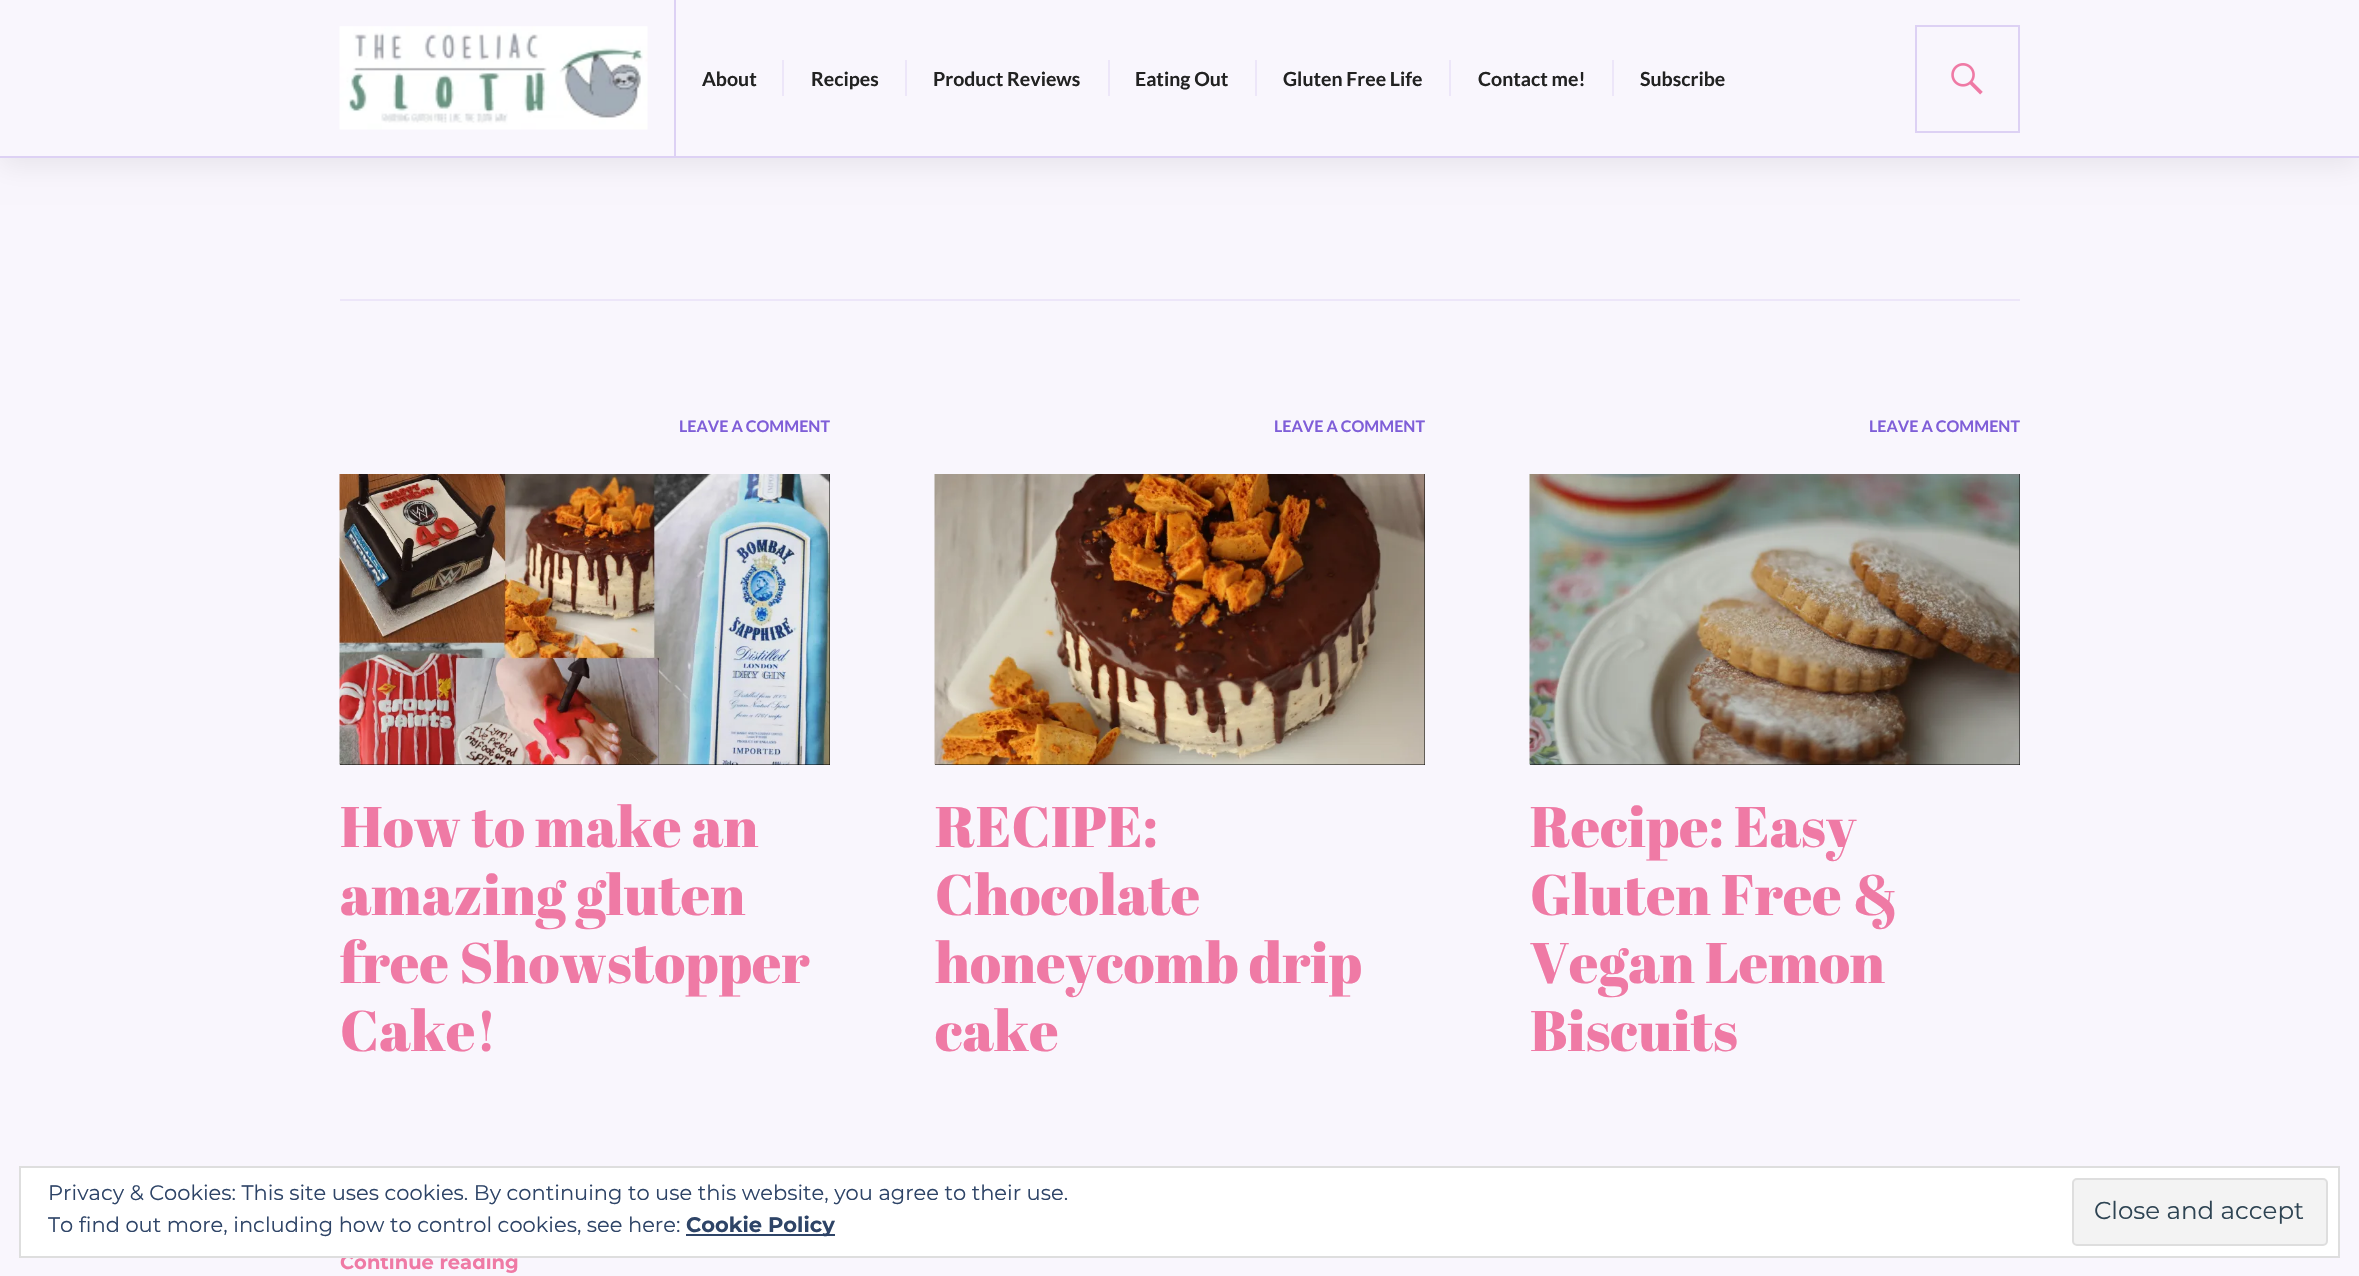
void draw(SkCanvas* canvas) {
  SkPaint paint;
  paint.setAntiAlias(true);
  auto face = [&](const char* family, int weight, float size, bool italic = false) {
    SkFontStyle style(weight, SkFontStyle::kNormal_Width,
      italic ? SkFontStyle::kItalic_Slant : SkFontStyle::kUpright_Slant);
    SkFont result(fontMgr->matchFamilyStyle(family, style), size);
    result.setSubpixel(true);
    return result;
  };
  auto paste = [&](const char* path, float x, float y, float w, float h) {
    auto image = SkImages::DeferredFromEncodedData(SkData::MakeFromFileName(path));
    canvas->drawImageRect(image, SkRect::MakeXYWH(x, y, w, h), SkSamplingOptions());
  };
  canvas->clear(0xfff9f6fd);
  paint.setColor(0x12000000);
  paint.setMaskFilter(SkMaskFilter::MakeBlur(kNormal_SkBlurStyle, 13));
  canvas->drawRect(SkRect::MakeXYWH(0, 9, 2359, 157), paint);
  paint.setMaskFilter(nullptr);
  paint.setColor(0xfff9f6fd);
  canvas->drawRect(SkRect::MakeXYWH(0, 0, 2359, 156), paint);
  paint.setColor(0xffddd1f4);
  canvas->drawRect(SkRect::MakeXYWH(0, 156, 2359, 2), paint);
  paste("img/1.png", 339, 26, 309, 104);
  {
    const struct { float x, y, w, h; SkColor color; } items[] = {
      {674, 0, 2, 156, 0xffddd1f4},
      {782, 60, 2, 36, 0xffede6f9},
      {905, 60, 2, 36, 0xffede6f9},
      {1108, 60, 2, 36, 0xffede6f9},
      {1255, 60, 2, 36, 0xffede6f9},
      {1449, 60, 2, 36, 0xffede6f9},
      {1612, 60, 2, 36, 0xffede6f9},
    };
    for (auto [x, y, w, h, color] : items) {
      paint.setColor(color);
      canvas->drawRect(SkRect::MakeXYWH(x, y, w, h), paint);
    }
  }
  paint.setStroke(true);
  paint.setStrokeWidth(2);
  paint.setColor(0xffddd1f4);
  canvas->drawRect(SkRect::MakeXYWH(1916, 26, 103, 106), paint);
  paste("img/2.png", 1951, 63, 32, 32);
  paint.setStroke(false);
  paint.setColor(0xffede6f9);
  canvas->drawRect(SkRect::MakeXYWH(340, 299, 1680, 2), paint);
  paint.setColor(0xff000000);
  canvas->drawRect(SkRect::MakeXYWH(340, 474, 490, 291), paint);
  paste("img/3.png", 339, 474, 491, 291);
  canvas->drawRect(SkRect::MakeXYWH(935, 474, 490, 291), paint);
  paste("img/4.png", 934, 474, 491, 291);
  canvas->drawRect(SkRect::MakeXYWH(1530, 474, 490, 291), paint);
  paste("img/5.png", 1529, 474, 491, 291);
  auto f0 = face("Lato", 700, 19.5f);
  paint.setColor(0xff222222);
  {
    const struct { const char* s; float x, y; } items[] = {
      {"About", 702, 86},
      {"Recipes", 811, 86},
      {"Product Reviews", 933, 86},
      {"Eating Out", 1135, 86},
      {"Gluten Free Life", 1283, 86},
      {"Contact me!", 1478, 86},
      {"Subscribe", 1640, 86},
    };
    for (auto [s, x, y] : items) {
      canvas->drawString(s, x, y, f0, paint);
    }
  }
  auto f1 = face("Lato", 700, 16);
  paint.setColor(0xff7f5ed8);
  canvas->drawString("LEAVE A COMMENT", 679, 432, f1, paint);
  auto f2 = face("Abril Fatface", 400, 57);
  paint.setColor(0xffef7aa5);
  {
    const struct { const char* s; float x, y; } items[] = {
      {"How to make an", 340, 847},
      {"amazing gluten", 340, 915},
      {"free Showstopper", 340, 983},
      {"Cake!", 340, 1051},
    };
    for (auto [s, x, y] : items) {
      canvas->drawString(s, x, y, f2, paint);
    }
  }
  auto f3 = face("Montserrat", 700, 19.5f);
  canvas->drawString("Continue reading", 340, 1269, f3, paint);
  paint.setColor(0xff7f5ed8);
  canvas->drawString("LEAVE A COMMENT", 1274, 432, f1, paint);
  paint.setColor(0xffef7aa5);
  {
    const struct { const char* s; float x, y; } items[] = {
      {"RECIPE:", 935, 847},
      {"Chocolate", 935, 915},
      {"honeycomb drip", 935, 983},
      {"cake", 935, 1051},
    };
    for (auto [s, x, y] : items) {
      canvas->drawString(s, x, y, f2, paint);
    }
  }
  paint.setColor(0xff7f5ed8);
  canvas->drawString("LEAVE A COMMENT", 1869, 432, f1, paint);
  paint.setColor(0xffef7aa5);
  {
    const struct { const char* s; float x, y; } items[] = {
      {"Recipe: Easy", 1530, 847},
      {"Gluten Free &", 1530, 915},
      {"Vegan Lemon", 1530, 983},
      {"Biscuits", 1530, 1051},
    };
    for (auto [s, x, y] : items) {
      canvas->drawString(s, x, y, f2, paint);
    }
  }
  paint.setColor(0xffffffff);
  canvas->drawRect(SkRect::MakeXYWH(20, 1167, 2319, 90), paint);
  paint.setStroke(true);
  paint.setColor(0xffdedede);
  canvas->drawRect(SkRect::MakeXYWH(20, 1167, 2319, 90), paint);
  auto f4 = face("Montserrat", 400, 21);
  paint.setStroke(false);
  paint.setColor(0xff2e4467);
  canvas->drawString("Privacy & Cookies: This site uses cookies. By continuing to use this website, you agree to their use.", 48, 1200, f4, paint);
  canvas->drawString("To find out more, including how to control cookies, see here:", 48, 1232, f4, paint);
  canvas->drawRect(SkRect::MakeXYWH(686, 1234, 149, 2), paint);
  auto f5 = face("Montserrat", 700, 21);
  canvas->drawString("Cookie Policy", 686, 1232, f5, paint);
  paint.setColor(0xfff3f3f3);
  canvas->drawRoundRect(SkRect::MakeXYWH(2073, 1179, 254, 66), 4, 4, paint);
  paint.setStroke(true);
  paint.setColor(0xffdedede);
  canvas->drawRoundRect(SkRect::MakeXYWH(2073, 1179, 254, 66), 4, 4, paint);
  auto f6 = face("Montserrat", 400, 24.5f);
  paint.setStroke(false);
  paint.setColor(0xff2e4453);
  canvas->drawString("Close and accept", 2094, 1219, f6, paint);
}
